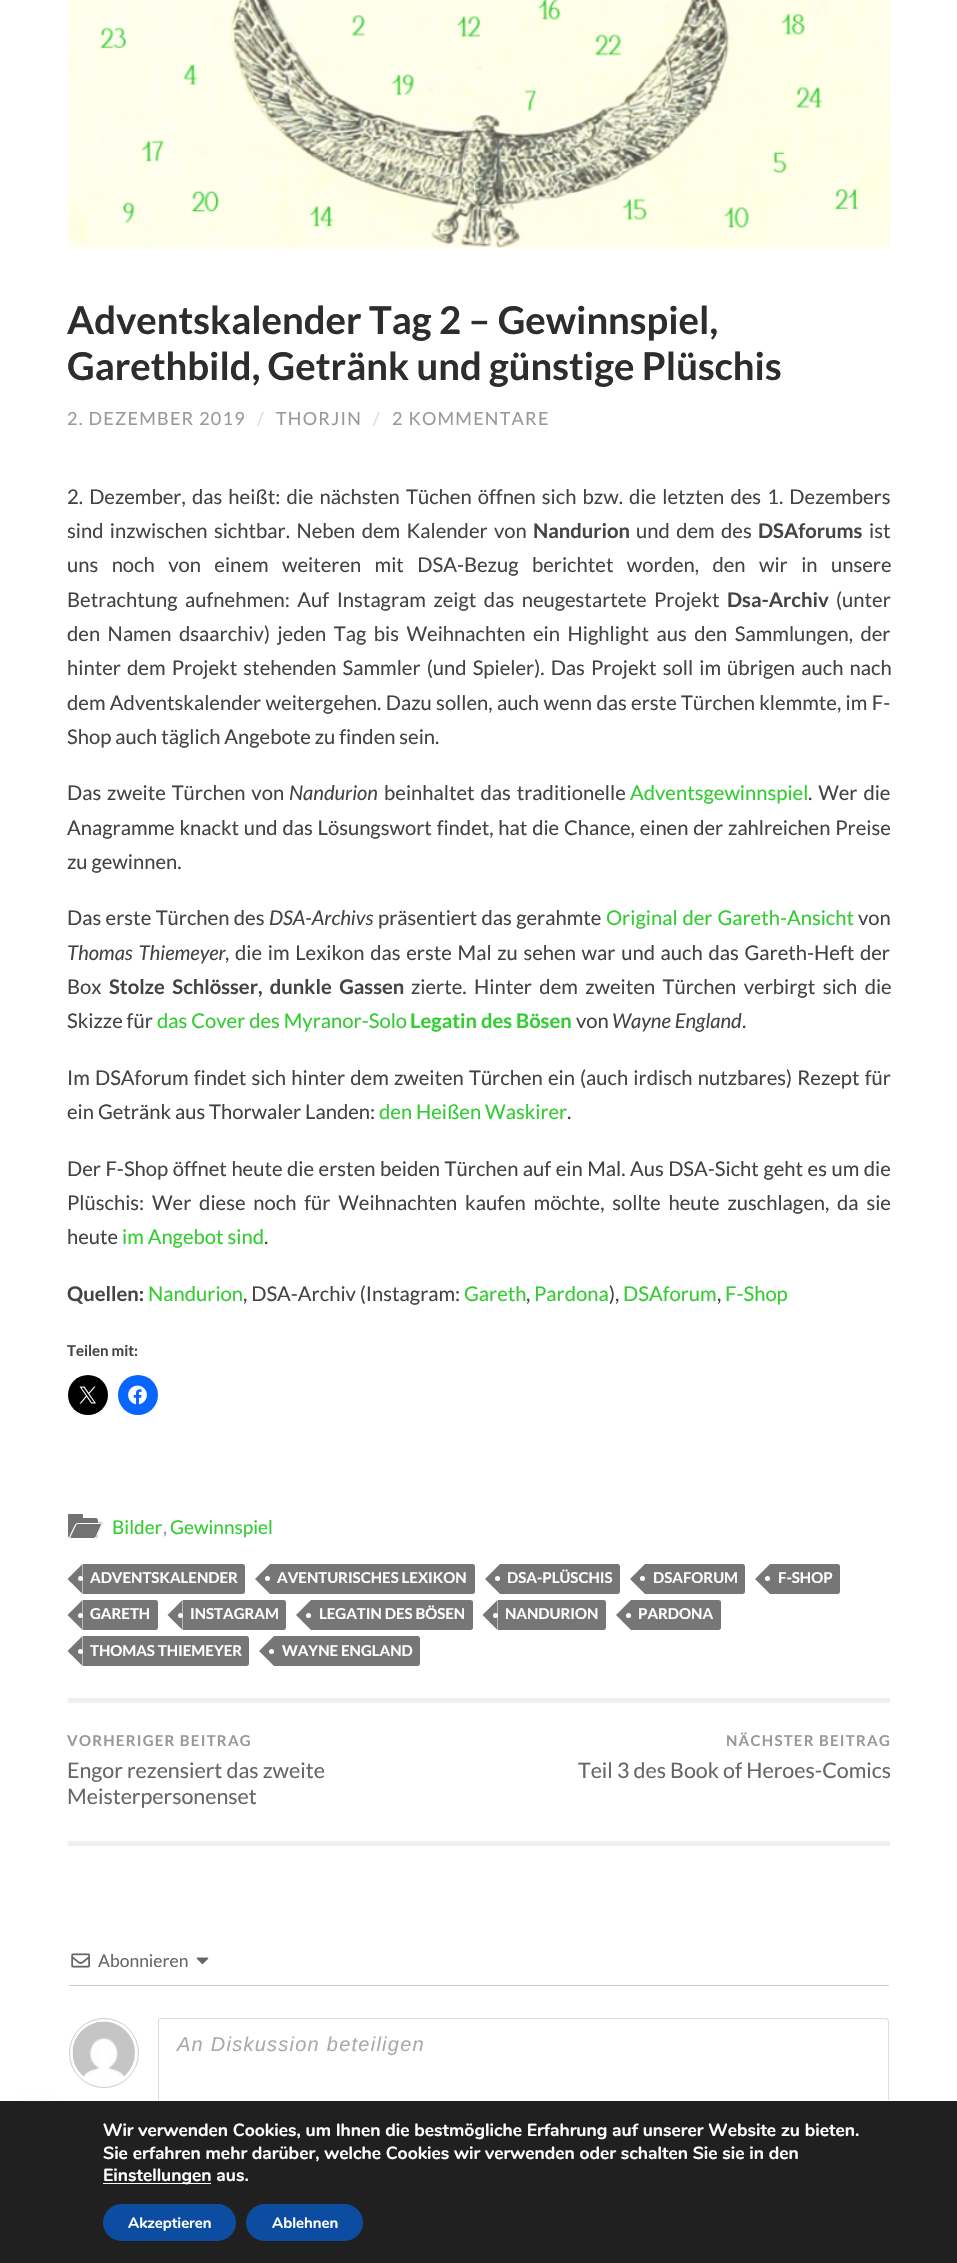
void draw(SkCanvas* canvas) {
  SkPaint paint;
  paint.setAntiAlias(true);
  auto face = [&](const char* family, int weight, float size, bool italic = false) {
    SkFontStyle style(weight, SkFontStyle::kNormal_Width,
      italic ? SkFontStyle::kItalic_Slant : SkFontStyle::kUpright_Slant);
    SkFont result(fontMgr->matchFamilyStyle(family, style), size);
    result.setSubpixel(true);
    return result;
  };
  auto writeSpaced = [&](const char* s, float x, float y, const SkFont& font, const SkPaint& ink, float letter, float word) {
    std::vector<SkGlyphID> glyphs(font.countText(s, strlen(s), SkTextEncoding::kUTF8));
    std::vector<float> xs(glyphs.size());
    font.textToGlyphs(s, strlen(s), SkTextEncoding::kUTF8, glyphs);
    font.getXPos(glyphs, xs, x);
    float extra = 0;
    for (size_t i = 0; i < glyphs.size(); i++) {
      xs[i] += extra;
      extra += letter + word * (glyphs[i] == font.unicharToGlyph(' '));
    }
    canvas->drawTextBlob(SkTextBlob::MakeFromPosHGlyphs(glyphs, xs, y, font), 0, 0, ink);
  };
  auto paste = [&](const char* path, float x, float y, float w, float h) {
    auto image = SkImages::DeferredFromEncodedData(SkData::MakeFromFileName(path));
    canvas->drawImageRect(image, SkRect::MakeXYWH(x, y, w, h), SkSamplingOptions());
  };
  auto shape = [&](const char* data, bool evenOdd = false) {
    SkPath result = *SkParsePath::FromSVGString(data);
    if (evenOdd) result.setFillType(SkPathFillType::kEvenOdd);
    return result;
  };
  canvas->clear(0xffffffff);
  paste("img/1.png", 67, 0, 823, 248);
  paint.setColor(0xff000000);
  canvas->drawCircle(88, 1395, 20, paint);
  paste("img/2.png", 79, 1386, 17, 18);
  paint.setColor(0xff0866ff);
  canvas->drawCircle(138, 1395, 20, paint);
  paste("img/3.png", 128, 1385, 19, 20);
  paint.setColor(0xff727272);
  canvas->drawPath(shape("M68 1518H95.5C97 1518 98 1519 98 1520.5V1535.5C98 1537 97 1538 95.5 1538H70.5C69 1538 68 1537 68 1535.5Z"), paint);
  canvas->drawPath(shape("M69 1514H82C82.5 1514 83 1514.5 83 1515V1518H68V1515C68 1514.5 68.5 1514 69 1514Z"), paint);
  canvas->drawPath(shape("M78.5 1522.5H101C102 1522.5 103 1524 102 1525L97 1536.5C96.5 1538 94.5 1539 93 1539H70.5C69.5 1539 69 1538 69.5 1536.5L74.5 1525C75.5 1524 77 1522.5 78.5 1522.5Z"), paint);
  paint.setStroke(true);
  paint.setStrokeWidth(1.2f);
  paint.setColor(0xffffffff);
  canvas->drawPath(shape("M78 1523.5H100.5C101.5 1523.5 102 1524 101.5 1525L96.5 1536.5C96 1537.5 94.5 1538.5 93.5 1538.5H71C70 1538.5 69.5 1537.5 70 1536.5L75.5 1525C76 1524 77 1523.5 78 1523.5Z"), paint);
  paint.setStroke(false);
  paint.setColor(0xff767676);
  canvas->drawPath(shape("M83 1564H242.5C244 1564 245 1565 245 1566.5V1591.5C245 1593 244 1594 242.5 1594H83Z"), paint);
  canvas->drawPath(shape("M82.5 1564V1594L67.5 1579Z"), paint);
  paint.setColor(0xffffffff);
  canvas->drawCircle(80.5f, 1578.5f, 2.5f, paint);
  paint.setColor(0xff767676);
  canvas->drawPath(shape("M270 1564H472.5C474 1564 475 1565 475 1566.5V1591.5C475 1593 474 1594 472.5 1594H270Z"), paint);
  canvas->drawPath(shape("M270 1564V1594L255 1579Z"), paint);
  paint.setColor(0xffffffff);
  canvas->drawCircle(267.5f, 1578.5f, 2.5f, paint);
  paint.setColor(0xff767676);
  canvas->drawPath(shape("M500 1564H617.5C619 1564 620 1565 620 1566.5V1591.5C620 1593 619 1594 617.5 1594H500Z"), paint);
  canvas->drawPath(shape("M500 1564V1594L485 1579Z"), paint);
  paint.setColor(0xffffffff);
  canvas->drawCircle(497.5f, 1578.5f, 2.5f, paint);
  paint.setColor(0xff767676);
  canvas->drawPath(shape("M645 1564H742.5C744 1564 745 1565 745 1566.5V1591.5C745 1593 744 1594 742.5 1594H645Z"), paint);
  canvas->drawPath(shape("M645 1564V1594L630 1579Z"), paint);
  paint.setColor(0xffffffff);
  canvas->drawCircle(642.5f, 1578.5f, 2.5f, paint);
  paint.setColor(0xff767676);
  canvas->drawPath(shape("M770 1564H837.5C839 1564 840 1565 840 1566.5V1591.5C840 1593 839 1594 837.5 1594H770Z"), paint);
  canvas->drawPath(shape("M770 1564V1594L755 1579Z"), paint);
  paint.setColor(0xffffffff);
  canvas->drawCircle(767.5f, 1578.5f, 2.5f, paint);
  paint.setColor(0xff767676);
  canvas->drawPath(shape("M83 1600H155.5C157 1600 158 1601 158 1602.5V1627.5C158 1629 157 1630 155.5 1630H83Z"), paint);
  canvas->drawPath(shape("M82.5 1600V1630L67.5 1615Z"), paint);
  paint.setColor(0xffffffff);
  canvas->drawCircle(80.5f, 1615.5f, 2.5f, paint);
  paint.setColor(0xff767676);
  canvas->drawPath(shape("M183 1600H283.5C285 1600 286 1601 286 1602.5V1627.5C286 1629 285 1630 283.5 1630H183Z"), paint);
  canvas->drawPath(shape("M182.5 1600V1630L167.5 1615Z"), paint);
  paint.setColor(0xffffffff);
  canvas->drawCircle(180.5f, 1615.5f, 2.5f, paint);
  paint.setColor(0xff767676);
  canvas->drawPath(shape("M311 1600H470.5C472 1600 473 1601 473 1602.5V1627.5C473 1629 472 1630 470.5 1630H311Z"), paint);
  canvas->drawPath(shape("M311 1600V1630L296 1615Z"), paint);
  paint.setColor(0xffffffff);
  canvas->drawCircle(308.5f, 1615.5f, 2.5f, paint);
  paint.setColor(0xff767676);
  canvas->drawPath(shape("M498 1600H603.5C605 1600 606 1601 606 1602.5V1627.5C606 1629 605 1630 603.5 1630H498Z"), paint);
  canvas->drawPath(shape("M497.5 1600V1630L482.5 1615Z"), paint);
  paint.setColor(0xffffffff);
  canvas->drawCircle(495.5f, 1615.5f, 2.5f, paint);
  paint.setColor(0xff767676);
  canvas->drawPath(shape("M631 1600H718.5C720 1600 721 1601 721 1602.5V1627.5C721 1629 720 1630 718.5 1630H631Z"), paint);
  canvas->drawPath(shape("M631 1600V1630L616 1615Z"), paint);
  paint.setColor(0xffffffff);
  canvas->drawCircle(628.5f, 1615.5f, 2.5f, paint);
  paint.setColor(0xff767676);
  canvas->drawPath(shape("M83 1636H246.5C248 1636 249 1637 249 1638.5V1663.5C249 1665 248 1666 246.5 1666H83Z"), paint);
  canvas->drawPath(shape("M82.5 1636V1666L67.5 1651Z"), paint);
  paint.setColor(0xffffffff);
  canvas->drawCircle(80.5f, 1651.5f, 2.5f, paint);
  paint.setColor(0xff767676);
  canvas->drawPath(shape("M274 1636H417.5C419 1636 420 1637 420 1638.5V1663.5C420 1665 419 1666 417.5 1666H274Z"), paint);
  canvas->drawPath(shape("M274 1636V1666L259 1651Z"), paint);
  paint.setColor(0xffffffff);
  canvas->drawCircle(271.5f, 1651.5f, 2.5f, paint);
  {
    const struct { float x, y, w, h; SkColor color; } items[] = {
      {68, 1698, 822, 5, 0xffeeeeee},
      {68, 1841, 822, 5, 0xffeeeeee},
      {69, 1985, 820, 1, 0xffcccccc},
    };
    for (auto [x, y, w, h, color] : items) {
      paint.setColor(color);
      canvas->drawRect(SkRect::MakeXYWH(x, y, w, h), paint);
    }
  }
  paste("img/4.png", 71, 1953, 19, 15);
  paste("img/5.png", 196, 1957, 13, 7);
  paint.setStroke(true);
  paint.setStrokeWidth(1);
  canvas->drawCircle(104, 2053, 34.5f, paint);
  paste("img/6.png", 72, 2021, 63, 56);
  paint.setStroke(false);
  paint.setColor(0xffdddddd);
  canvas->drawPath(shape("M161 2018H885C887 2018 889 2019 889 2021V2100H158V2021C158 2019 159 2018 161 2018ZM161 2019H885C886 2019 888 2020 888 2021V2100H159V2021C159 2020 160 2019 161 2019Z", true), paint);
  paint.setColor(0xffb3b3b3);
  paint.setMaskFilter(SkMaskFilter::MakeBlur(kNormal_SkBlurStyle, 9.5f));
  canvas->drawRoundRect(SkRect::MakeXYWH(13, 2114, 50, 50), 25, 25, paint);
  paint.setMaskFilter(nullptr);
  {
    const struct { float x, y, w, h; SkColor color; } items[] = {
      {0, 2101, 957, 162, 0xff202020},
      {24, 2100, 28, 1, 0xffffffff},
      {103, 2183, 108, 1, 0xffffffff},
    };
    for (auto [x, y, w, h, color] : items) {
      paint.setColor(color);
      canvas->drawRect(SkRect::MakeXYWH(x, y, w, h), paint);
    }
  }
  paint.setColor(0xff0c4da2);
  canvas->drawRoundRect(SkRect::MakeXYWH(103, 2204, 133, 37), 18.5f, 18.5f, paint);
  canvas->drawRoundRect(SkRect::MakeXYWH(246, 2204, 117, 37), 18.5f, 18.5f, paint);
  auto f0 = face("Lato", 700, 38.25f);
  paint.setColor(0xff2d2d2d);
  canvas->drawString("Adventskalender Tag 2 – Gewinnspiel,", 67, 334, f0, paint);
  canvas->drawString("Garethbild, Getränk und günstige Plüschis", 67, 380, f0, paint);
  auto f1 = face("Lato", 400, 18);
  paint.setColor(0xff999999);
  writeSpaced("2. DEZEMBER 2019", 67, 425, f1, paint, 1.25f, 0);
  paint.setColor(0xffdddddd);
  writeSpaced("/", 257, 425, f1, paint, 1.25f, 0);
  paint.setColor(0xff999999);
  writeSpaced("THORJIN", 276, 425, f1, paint, 1.25f, 0);
  paint.setColor(0xffdddddd);
  writeSpaced("/", 373, 425, f1, paint, 1.25f, 0);
  paint.setColor(0xff999999);
  writeSpaced("2 KOMMENTARE", 392, 425, f1, paint, 1.25f, 0);
  auto f2 = face("Lato", 400, 20.2f);
  paint.setColor(0xff444444);
  writeSpaced("2. Dezember, das heißt: die nächsten Tüchen öffnen sich bzw. die letzten des 1. Dezembers", 67, 504, f2, paint, 0, 2.25f);
  writeSpaced("sind inzwischen sichtbar. Neben dem Kalender von", 67, 538, f2, paint, 0, 2.5f);
  auto f3 = face("Lato", 700, 20.2f);
  canvas->drawString("Nandurion", 533, 538, f3, paint);
  writeSpaced("und dem des", 636, 538, f2, paint, 0, 2.5f);
  canvas->drawString("DSAforums", 758, 538, f3, paint);
  canvas->drawString("ist", 869, 538, f2, paint);
  writeSpaced("uns noch von einem weiteren mit DSA-Bezug berichtet worden, den wir in unsere", 67, 572, f2, paint, 0, 9.5f);
  writeSpaced("Betrachtung aufnehmen: Auf Instagram zeigt das neugestartete Projekt", 67, 607, f2, paint, 0, 3.6f);
  canvas->drawString("Dsa-Archiv", 727, 607, f3, paint);
  canvas->drawString("(unter", 836, 607, f2, paint);
  writeSpaced("den Namen dsaarchiv) jeden Tag bis Weihnachten ein Highlight aus den Sammlungen, der", 67, 641, f2, paint, 0, 3.6f);
  writeSpaced("hinter dem Projekt stehenden Sammler (und Spieler). Das Projekt soll im übrigen auch nach", 67, 675, f2, paint, 0, 2.25f);
  writeSpaced("dem Adventskalender weitergehen. Dazu sollen, auch wenn das erste Türchen klemmte, im F-", 67, 710, f2, paint, 0, 0.5f);
  canvas->drawString("Shop auch täglich Angebote zu finden sein.", 67, 744, f2, paint);
  writeSpaced("Das zweite Türchen von", 67, 800, f2, paint, 0, 2);
  auto f4 = face("Lato", 400, 20.2f, true);
  canvas->drawString("Nandurion", 289, 800, f4, paint);
  writeSpaced("beinhaltet das traditionelle", 384, 800, f2, paint, 0, 2);
  paint.setColor(0xff33cc33);
  canvas->drawString("Adventsgewinnspiel", 630, 800, f2, paint);
  paint.setColor(0xff444444);
  writeSpaced(". Wer die", 808, 800, f2, paint, 0, 2);
  writeSpaced("Anagramme knackt und das Lösungswort findet, hat die Chance, einen der zahlreichen Preise", 67, 835, f2, paint, 0, 0.9f);
  canvas->drawString("zu gewinnen.", 67, 869, f2, paint);
  writeSpaced("Das erste Türchen des", 67, 925, f2, paint, 0, 0.5f);
  canvas->drawString("DSA-Archivs", 269, 925, f4, paint);
  writeSpaced("präsentiert das gerahmte", 378, 925, f2, paint, 0, 0.5f);
  paint.setColor(0xff33cc33);
  writeSpaced("Original der Gareth-Ansicht", 606, 925, f2, paint, 0, 1);
  paint.setColor(0xff444444);
  canvas->drawString("von", 858, 925, f2, paint);
  writeSpaced("Thomas Thiemeyer", 67, 960, f4, paint, 0, 2);
  writeSpaced(", die im Lexikon das erste Mal zu sehen war und auch das Gareth-Heft der", 225, 960, f2, paint, 0, 1.8f);
  canvas->drawString("Box", 67, 994, f2, paint);
  writeSpaced("Stolze Schlösser, dunkle Gassen", 109, 994, f3, paint, 0, 3.5f);
  writeSpaced("zierte. Hinter dem zweiten Türchen verbirgt sich die", 411, 994, f2, paint, 0, 3.5f);
  canvas->drawString("Skizze für", 67, 1028, f2, paint);
  paint.setColor(0xff33cc33);
  canvas->drawString("das Cover des Myranor-Solo", 157, 1028, f2, paint);
  canvas->drawString("Legatin des Bösen", 410, 1028, f3, paint);
  paint.setColor(0xff444444);
  canvas->drawString("von", 576, 1028, f2, paint);
  canvas->drawString("Wayne England", 612, 1028, f4, paint);
  canvas->drawString(".", 742, 1028, f2, paint);
  writeSpaced("Im DSAforum findet sich hinter dem zweiten Türchen ein (auch irdisch nutzbares) Rezept für", 67, 1085, f2, paint, 0, 1.25f);
  canvas->drawString("ein Getränk aus Thorwaler Landen:", 67, 1119, f2, paint);
  paint.setColor(0xff33cc33);
  canvas->drawString("den Heißen Waskirer", 379, 1119, f2, paint);
  paint.setColor(0xff444444);
  canvas->drawString(".", 567, 1119, f2, paint);
  writeSpaced("Der F-Shop öffnet heute die ersten beiden Türchen auf ein Mal. Aus DSA-Sicht geht es um die", 67, 1176, f2, paint, 0, 0.6f);
  writeSpaced("Plüschis: Wer diese noch für Weihnachten kaufen möchte, sollte heute zuschlagen, da sie", 67, 1210, f2, paint, 0, 3.9f);
  canvas->drawString("heute", 67, 1244, f2, paint);
  paint.setColor(0xff33cc33);
  canvas->drawString("im Angebot sind", 122, 1244, f2, paint);
  paint.setColor(0xff444444);
  canvas->drawString(".", 264, 1244, f2, paint);
  canvas->drawString("Quellen:", 67, 1301, f3, paint);
  paint.setColor(0xff33cc33);
  canvas->drawString("Nandurion", 148, 1301, f2, paint);
  paint.setColor(0xff444444);
  canvas->drawString(", DSA-Archiv (Instagram:", 243, 1301, f2, paint);
  paint.setColor(0xff33cc33);
  canvas->drawString("Gareth", 464, 1301, f2, paint);
  paint.setColor(0xff444444);
  canvas->drawString(",", 526, 1301, f2, paint);
  paint.setColor(0xff33cc33);
  canvas->drawString("Pardona", 534, 1301, f2, paint);
  paint.setColor(0xff444444);
  canvas->drawString("),", 609, 1301, f2, paint);
  paint.setColor(0xff33cc33);
  canvas->drawString("DSAforum", 623, 1301, f2, paint);
  paint.setColor(0xff444444);
  canvas->drawString(",", 717, 1301, f2, paint);
  paint.setColor(0xff33cc33);
  canvas->drawString("F-Shop", 725, 1301, f2, paint);
  auto f5 = face("Lato", 700, 15);
  paint.setColor(0xff444444);
  canvas->drawString("Teilen mit:", 67, 1356, f5, paint);
  auto f6 = face("Lato", 400, 19);
  paint.setColor(0xff33cc33);
  canvas->drawString("Bilder", 112, 1534, f6, paint);
  paint.setColor(0xff999999);
  canvas->drawString(",", 163, 1534, f6, paint);
  paint.setColor(0xff33cc33);
  canvas->drawString("Gewinnspiel", 170, 1534, f6, paint);
  paint.setColor(0xffffffff);
  {
    const struct { const char* s; float x, y; } items[] = {
      {"ADVENTSKALENDER", 90, 1583},
      {"AVENTURISCHES LEXIKON", 277, 1583},
      {"DSA-PLÜSCHIS", 507, 1583},
      {"DSAFORUM", 653, 1583},
      {"F-SHOP", 778, 1583},
      {"GARETH", 90, 1619},
      {"INSTAGRAM", 190, 1619},
      {"LEGATIN DES BÖSEN", 319, 1619},
      {"NANDURION", 505, 1619},
      {"PARDONA", 638, 1619},
      {"THOMAS THIEMEYER", 90, 1656},
      {"WAYNE ENGLAND", 282, 1656},
    };
    for (auto [s, x, y] : items) {
      canvas->drawString(s, x, y, f5, paint);
    }
  }
  paint.setColor(0xff999999);
  writeSpaced("VORHERIGER BEITRAG", 67, 1746, f5, paint, 1.25f, 0);
  auto f7 = face("Lato", 400, 21.4f);
  paint.setColor(0xff666666);
  canvas->drawString("Engor rezensiert das zweite", 67, 1778, f7, paint);
  canvas->drawString("Meisterpersonenset", 67, 1804, f7, paint);
  paint.setColor(0xff999999);
  writeSpaced("NÄCHSTER BEITRAG", 726, 1746, f5, paint, 1.25f, 0);
  paint.setColor(0xff666666);
  canvas->drawString("Teil 3 des Book of Heroes-Comics", 578, 1778, f7, paint);
  auto f8 = face("Lato", 400, 17.5f);
  canvas->drawString("Abonnieren", 98, 1967, f8, paint);
  auto f9 = face("Liberation Sans", 400, 20, true);
  paint.setColor(0xffaaaaaa);
  writeSpaced("An Diskussion beteiligen", 177, 2051, f9, paint, 1.25f, 0);
  auto f10 = face("Nunito", 700, 17.5f);
  paint.setColor(0xffffffff);
  {
    const struct { const char* s; float x, y; } items[] = {
      {"Wir verwenden Cookies, um Ihnen die bestmögliche Erfahrung auf unserer Website zu bieten.", 103, 2136},
      {"Sie erfahren mehr darüber, welche Cookies wir verwenden oder schalten Sie sie in den", 103, 2159},
      {"Einstellungen aus.", 103, 2181},
    };
    for (auto [s, x, y] : items) {
      canvas->drawString(s, x, y, f10, paint);
    }
  }
  auto f11 = face("Nunito", 700, 15);
  canvas->drawString("Akzeptieren", 128, 2228, f11, paint);
  canvas->drawString("Ablehnen", 272, 2228, f11, paint);
}
